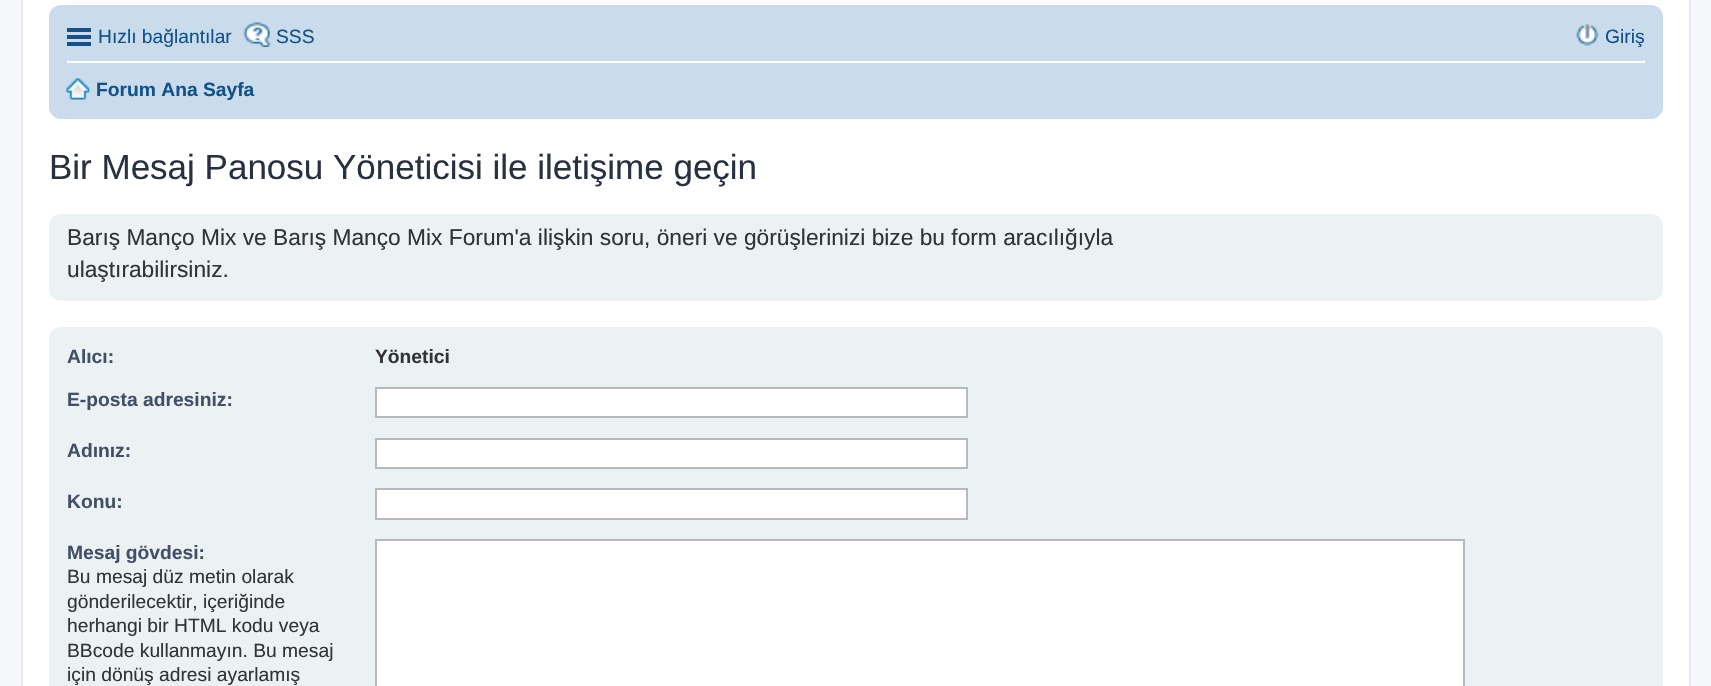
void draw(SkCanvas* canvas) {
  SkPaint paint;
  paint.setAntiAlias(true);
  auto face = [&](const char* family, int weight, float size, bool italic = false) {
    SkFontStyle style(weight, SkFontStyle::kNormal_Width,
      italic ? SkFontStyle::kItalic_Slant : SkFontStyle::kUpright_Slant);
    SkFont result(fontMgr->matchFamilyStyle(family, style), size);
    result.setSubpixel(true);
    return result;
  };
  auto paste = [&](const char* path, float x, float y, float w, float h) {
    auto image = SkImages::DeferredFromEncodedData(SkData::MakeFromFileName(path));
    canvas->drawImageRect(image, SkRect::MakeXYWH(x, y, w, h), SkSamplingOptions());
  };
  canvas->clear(0xfff5f7fa);
  paint.setColor(0xffffffff);
  canvas->drawRect(SkRect::MakeXYWH(22, -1, 1668, 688), paint);
  paint.setStroke(true);
  paint.setStrokeWidth(2);
  paint.setColor(0xffe6e9ed);
  canvas->drawRect(SkRect::MakeXYWH(22, -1, 1668, 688), paint);
  paint.setStroke(false);
  paint.setColor(0xffcadceb);
  canvas->drawRoundRect(SkRect::MakeXYWH(49, 5, 1614, 114), 12, 12, paint);
  {
    const struct { float x, y, w, h; SkColor color; } items[] = {
      {67, 28, 24, 4, 0xff105289},
      {67, 35, 24, 4, 0xff105289},
      {67, 42, 24, 4, 0xff105289},
    };
    for (auto [x, y, w, h, color] : items) {
      paint.setColor(color);
      canvas->drawRect(SkRect::MakeXYWH(x, y, w, h), paint);
    }
  }
  paste("img/1.png", 243, 22, 29, 25);
  paste("img/2.png", 1576, 24, 23, 22);
  paint.setColor(0xffffffff);
  canvas->drawRect(SkRect::MakeXYWH(67, 61, 1578, 2), paint);
  paste("img/3.png", 66, 78, 24, 22);
  paint.setColor(0xffecf1f3);
  canvas->drawRoundRect(SkRect::MakeXYWH(49, 214, 1614, 87), 12, 12, paint);
  canvas->drawRoundRect(SkRect::MakeXYWH(49, 327, 1614, 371), 12, 12, paint);
  paint.setColor(0xffffffff);
  canvas->drawRect(SkRect::MakeXYWH(376, 388, 591, 29), paint);
  paint.setStroke(true);
  paint.setColor(0xffb4bac0);
  canvas->drawRect(SkRect::MakeXYWH(376, 388, 591, 29), paint);
  paint.setStroke(false);
  paint.setColor(0xffffffff);
  canvas->drawRect(SkRect::MakeXYWH(376, 439, 591, 29), paint);
  paint.setStroke(true);
  paint.setColor(0xffb4bac0);
  canvas->drawRect(SkRect::MakeXYWH(376, 439, 591, 29), paint);
  paint.setStroke(false);
  paint.setColor(0xffffffff);
  canvas->drawRect(SkRect::MakeXYWH(376, 489, 591, 30), paint);
  paint.setStroke(true);
  paint.setColor(0xffb4bac0);
  canvas->drawRect(SkRect::MakeXYWH(376, 489, 591, 30), paint);
  paint.setStroke(false);
  paint.setColor(0xffffffff);
  canvas->drawRect(SkRect::MakeXYWH(376, 540, 1088, 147), paint);
  paint.setStroke(true);
  paint.setColor(0xffb4bac0);
  canvas->drawRect(SkRect::MakeXYWH(376, 540, 1088, 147), paint);
  auto f0 = face("Liberation Sans", 400, 19.25f);
  paint.setStroke(false);
  paint.setColor(0xff105289);
  {
    const struct { const char* s; float x, y; } items[] = {
      {"Hızlı bağlantılar", 98, 43},
      {"SSS", 276, 43},
      {"Giriş", 1605, 43},
    };
    for (auto [s, x, y] : items) {
      canvas->drawString(s, x, y, f0, paint);
    }
  }
  auto f1 = face("Liberation Sans", 700, 19.25f);
  canvas->drawString("Forum Ana Sayfa", 96, 96, f1, paint);
  auto f2 = face("Liberation Sans", 400, 35);
  paint.setColor(0xff28313f);
  canvas->drawString("Bir Mesaj Panosu Yöneticisi ile iletişime geçin", 49, 179, f2, paint);
  auto f3 = face("Liberation Sans", 400, 22.75f);
  paint.setColor(0xff333333);
  canvas->drawString("Barış Manço Mix ve Barış Manço Mix Forum'a ilişkin soru, öneri ve görüşlerinizi bize bu form aracılığıyla", 67, 245, f3, paint);
  canvas->drawString("ulaştırabilirsiniz.", 67, 277, f3, paint);
  paint.setColor(0xff425067);
  canvas->drawString("Alıcı:", 67, 363, f1, paint);
  paint.setColor(0xff333333);
  canvas->drawString("Yönetici", 375, 363, f1, paint);
  paint.setColor(0xff425067);
  {
    const struct { const char* s; float x, y; } items[] = {
      {"E-posta adresiniz:", 67, 406},
      {"Adınız:", 67, 457},
      {"Konu:", 67, 508},
      {"Mesaj gövdesi:", 67, 559},
    };
    for (auto [s, x, y] : items) {
      canvas->drawString(s, x, y, f1, paint);
    }
  }
  paint.setColor(0xff333333);
  {
    const struct { const char* s; float x, y; } items[] = {
      {"Bu mesaj düz metin olarak", 67, 583},
      {"gönderilecektir, içeriğinde", 67, 608},
      {"herhangi bir HTML kodu veya", 67, 632},
      {"BBcode kullanmayın. Bu mesaj", 67, 657},
      {"için dönüş adresi ayarlamış", 67, 681},
    };
    for (auto [s, x, y] : items) {
      canvas->drawString(s, x, y, f0, paint);
    }
  }
}
